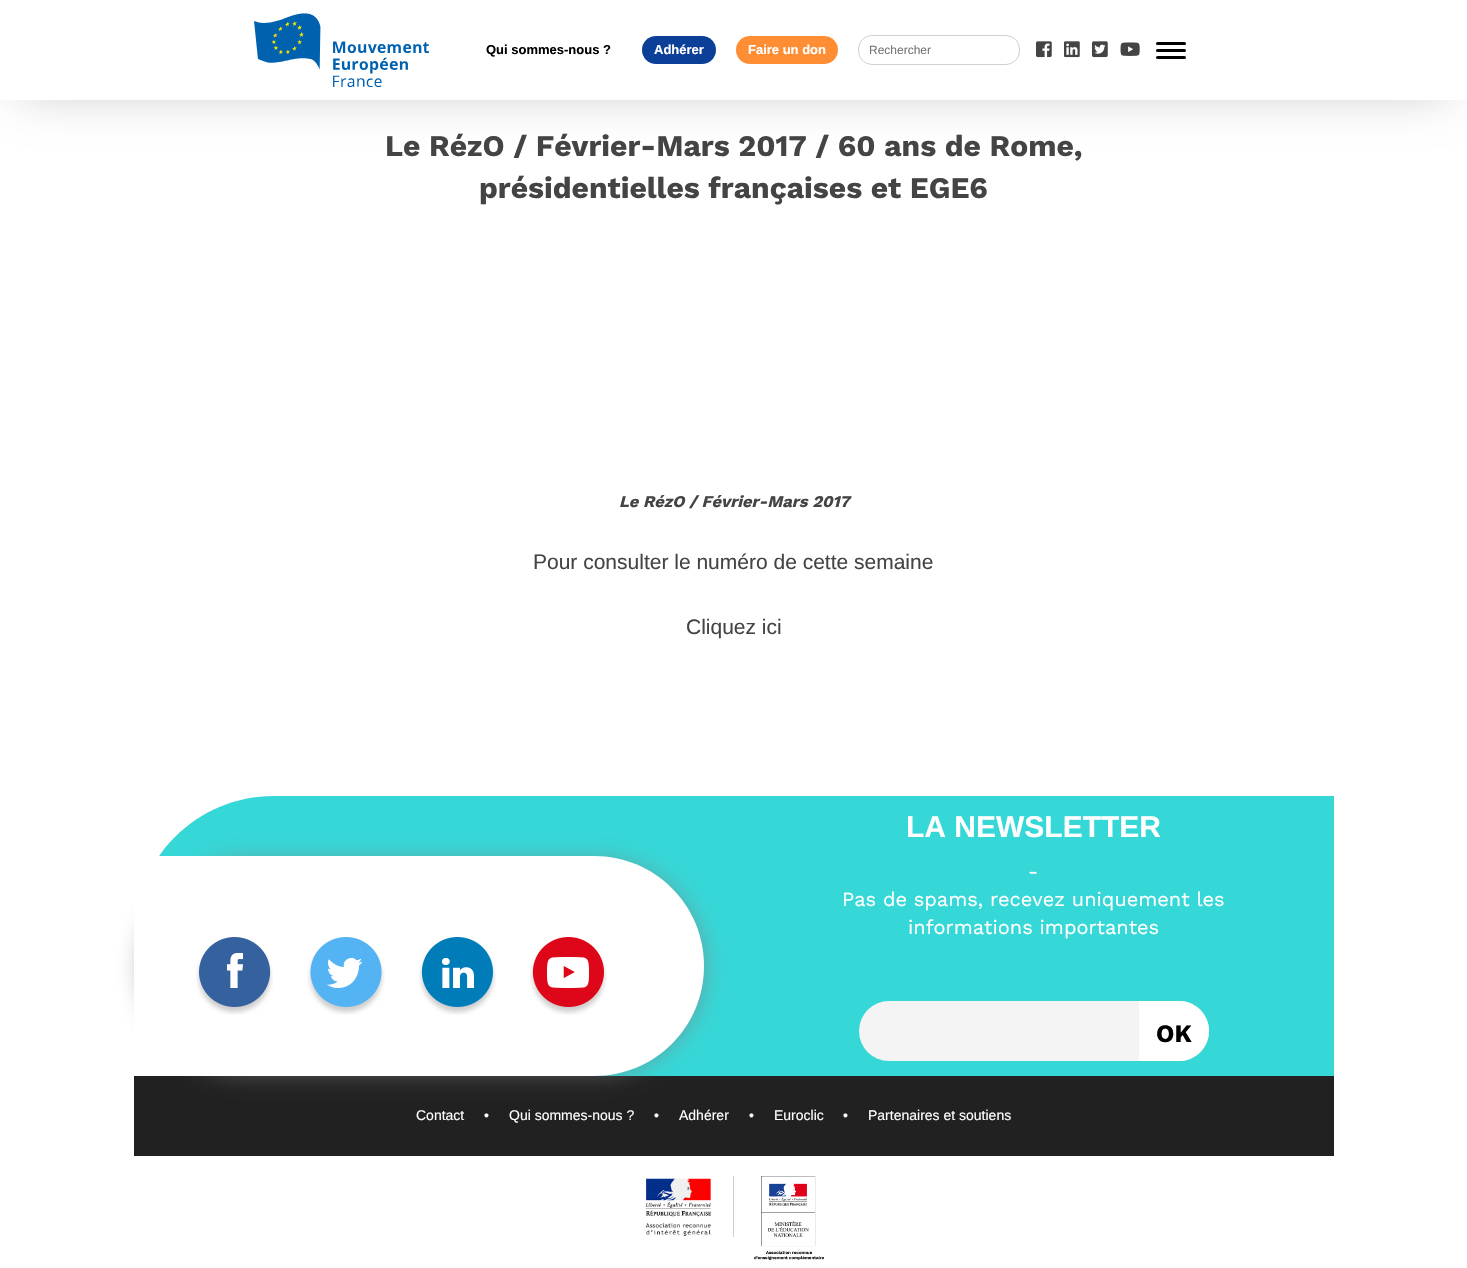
void draw(SkCanvas* canvas) {
  SkPaint paint;
  paint.setAntiAlias(true);
  auto face = [&](const char* family, int weight, float size, bool italic = false) {
    SkFontStyle style(weight, SkFontStyle::kNormal_Width,
      italic ? SkFontStyle::kItalic_Slant : SkFontStyle::kUpright_Slant);
    SkFont result(fontMgr->matchFamilyStyle(family, style), size);
    result.setSubpixel(true);
    return result;
  };
  auto paste = [&](const char* path, float x, float y, float w, float h) {
    auto image = SkImages::DeferredFromEncodedData(SkData::MakeFromFileName(path));
    canvas->drawImageRect(image, SkRect::MakeXYWH(x, y, w, h), SkSamplingOptions());
  };
  auto shape = [&](const char* data, bool evenOdd = false) {
    SkPath result = *SkParsePath::FromSVGString(data);
    if (evenOdd) result.setFillType(SkPathFillType::kEvenOdd);
    return result;
  };
  canvas->clear(0xffffffff);
  paint.setColor(0xffbfbfbf);
  paint.setMaskFilter(SkMaskFilter::MakeBlur(kNormal_SkBlurStyle, 25));
  canvas->drawRect(SkRect::MakeXYWH(20, 30, 1427, 60), paint);
  paint.setMaskFilter(nullptr);
  paint.setColor(0xffffffff);
  canvas->drawRect(SkRect::MakeXYWH(0, 0, 1467, 100), paint);
  paste("img/1.png", 254, 13, 175, 74);
  paint.setColor(0xff0c3f98);
  canvas->drawRoundRect(SkRect::MakeXYWH(642, 36, 74, 28), 14, 14, paint);
  paint.setColor(0xffff8d33);
  canvas->drawRoundRect(SkRect::MakeXYWH(736, 36, 102, 28), 14, 14, paint);
  paint.setStroke(true);
  paint.setStrokeWidth(1);
  paint.setColor(0xffd0d0d0);
  canvas->drawRoundRect(SkRect::MakeXYWH(858.5f, 35.5f, 161, 29), 13.5f, 13.5f, paint);
  paste("img/2.png", 1036, 41, 16, 17);
  paste("img/3.png", 1064, 41, 16, 17);
  paste("img/4.png", 1092, 41, 16, 17);
  paste("img/5.png", 1120, 42, 20, 14);
  paint.setStroke(false);
  paint.setColor(0xff000000);
  canvas->drawRoundRect(SkRect::MakeXYWH(1156, 42, 30, 3), 1.5f, 1.5f, paint);
  canvas->drawRoundRect(SkRect::MakeXYWH(1156, 49, 30, 3), 1.5f, 1.5f, paint);
  canvas->drawRoundRect(SkRect::MakeXYWH(1156, 56, 30, 3), 1.5f, 1.5f, paint);
  paint.setColor(0xff36d7d7);
  canvas->drawPath(shape("M274 796H1334V1076H274C196.5 1076 134 1013.5 134 936C134 858.5 196.5 796 274 796Z"), paint);
  paint.setColor(0xff212121);
  canvas->drawRect(SkRect::MakeXYWH(134, 1076, 1200, 80), paint);
  paint.setColor(0xbf808080);
  paint.setMaskFilter(SkMaskFilter::MakeBlur(kNormal_SkBlurStyle, 12.5f));
  canvas->drawRoundRect(SkRect::MakeXYWH(142, 862, 560, 210), 105, 105, paint);
  paint.setMaskFilter(nullptr);
  paint.setColor(0xffffffff);
  canvas->drawPath(shape("M134 856H594C655 856 704 905 704 966C704 1027 655 1076 594 1076H134Z"), paint);
  paste("img/6.png", 196, 937, 77, 78);
  paste("img/7.png", 307, 937, 78, 78);
  paste("img/8.png", 419, 937, 77, 78);
  paste("img/9.png", 530, 937, 77, 78);
  paint.setColor(0xfff4f4f4);
  canvas->drawRoundRect(SkRect::MakeXYWH(859, 1001, 350, 60), 30, 30, paint);
  paint.setColor(0xffffffff);
  canvas->drawPath(shape("M1139 1001H1179C1195.5 1001 1209 1014.5 1209 1031C1209 1047.5 1195.5 1061 1179 1061H1139Z"), paint);
  paste("img/10.png", 645, 1178, 66, 58);
  paint.setColor(0xffcecece);
  canvas->drawRect(SkRect::MakeXYWH(733, 1176, 1, 61), paint);
  paste("img/11.png", 754, 1176, 70, 84);
  auto f0 = face("Liberation Sans", 700, 13);
  paint.setColor(0xff000000);
  canvas->drawString("Qui sommes-nous ?", 486, 54, f0, paint);
  paint.setColor(0xffffffff);
  canvas->drawString("Adhérer", 654, 54, f0, paint);
  canvas->drawString("Faire un don", 748, 54, f0, paint);
  auto f1 = face("Liberation Sans", 400, 12);
  paint.setColor(0xff757575);
  canvas->drawString("Rechercher", 869, 54, f1, paint);
  auto f2 = face("Work Sans", 700, 30);
  paint.setColor(0xff444444);
  canvas->drawString("Le RézO / Février-Mars 2017 / 60 ans de Rome,", 385, 156, f2, paint);
  canvas->drawString("présidentielles françaises et EGE6", 479, 198, f2, paint);
  auto f3 = face("Work Sans", 700, 16.4f, true);
  canvas->drawString("Le RézO / Février-Mars 2017", 619, 507, f3, paint);
  auto f4 = face("Liberation Sans", 400, 21);
  canvas->drawString("Pour consulter le numéro de cette semaine", 533, 569, f4, paint);
  canvas->drawString("Cliquez ici", 686, 634, f4, paint);
  auto f5 = face("Liberation Sans", 700, 30);
  paint.setColor(0xffffffff);
  canvas->drawString("LA NEWSLETTER", 906, 837, f5, paint);
  auto f6 = face("Work Sans", 400, 20);
  {
    const struct { const char* s; float x, y; } items[] = {
      {"-", 1028, 878},
      {"Pas de spams, recevez uniquement les", 842, 906},
      {"informations importantes", 908, 934},
    };
    for (auto [s, x, y] : items) {
      canvas->drawString(s, x, y, f6, paint);
    }
  }
  auto f7 = face("Work Sans", 700, 25);
  paint.setColor(0xff000000);
  canvas->drawString("OK", 1156, 1042, f7, paint);
  auto f8 = face("Liberation Sans", 400, 14);
  paint.setColor(0xffffffff);
  {
    const struct { const char* s; float x, y; } items[] = {
      {"Contact", 416, 1120},
      {"•", 484, 1120},
      {"Qui sommes-nous ?", 509, 1120},
      {"•", 654, 1120},
      {"Adhérer", 679, 1120},
      {"•", 749, 1120},
      {"Euroclic", 774, 1120},
      {"•", 843, 1120},
      {"Partenaires et soutiens", 868, 1120},
    };
    for (auto [s, x, y] : items) {
      canvas->drawString(s, x, y, f8, paint);
    }
  }
}
